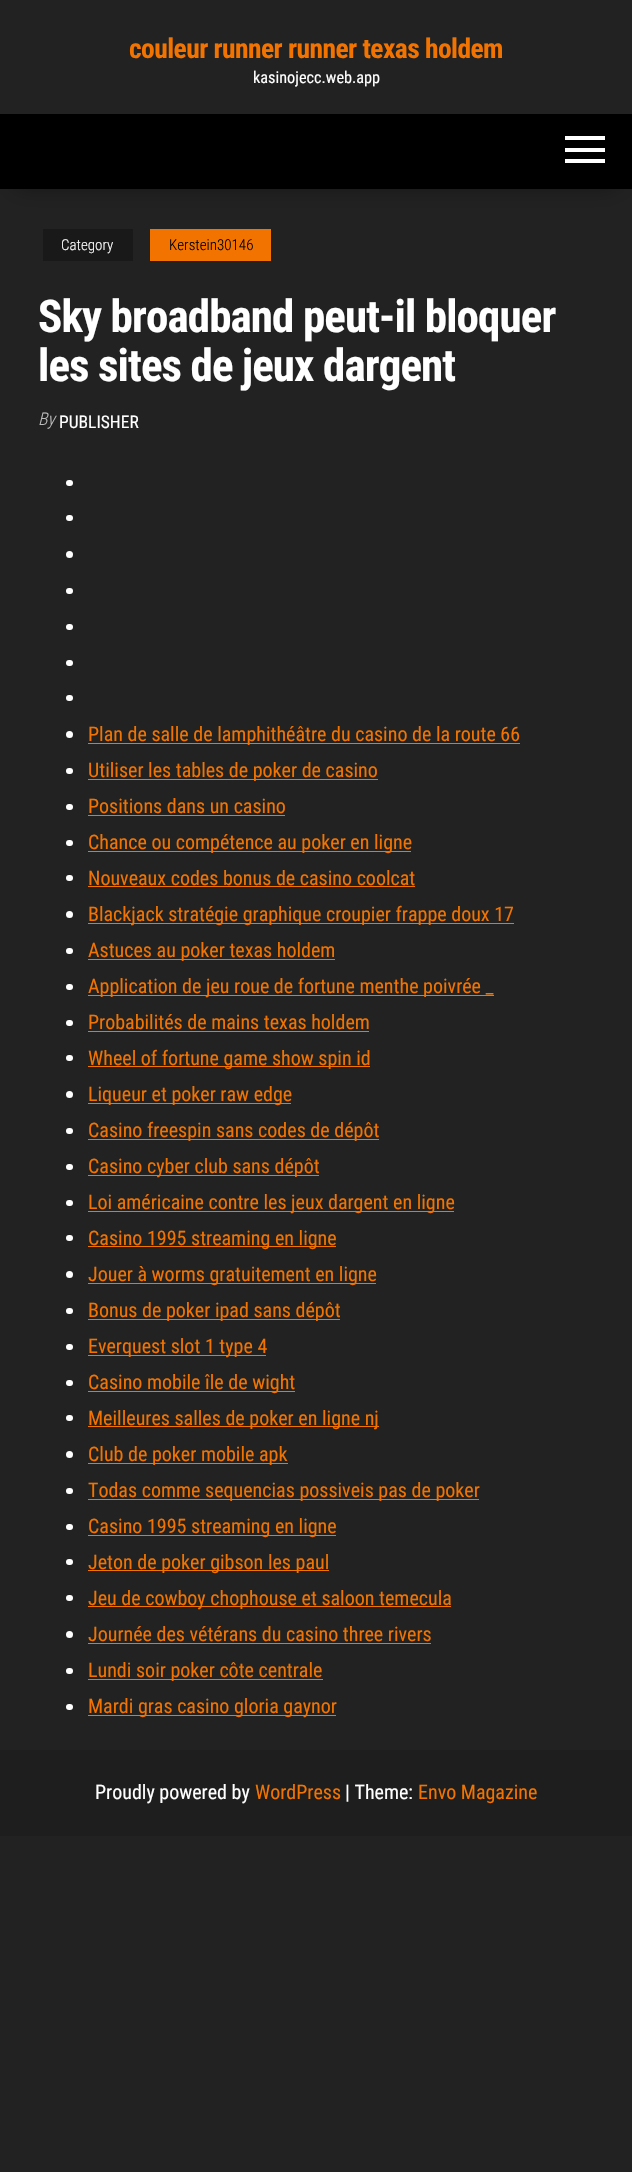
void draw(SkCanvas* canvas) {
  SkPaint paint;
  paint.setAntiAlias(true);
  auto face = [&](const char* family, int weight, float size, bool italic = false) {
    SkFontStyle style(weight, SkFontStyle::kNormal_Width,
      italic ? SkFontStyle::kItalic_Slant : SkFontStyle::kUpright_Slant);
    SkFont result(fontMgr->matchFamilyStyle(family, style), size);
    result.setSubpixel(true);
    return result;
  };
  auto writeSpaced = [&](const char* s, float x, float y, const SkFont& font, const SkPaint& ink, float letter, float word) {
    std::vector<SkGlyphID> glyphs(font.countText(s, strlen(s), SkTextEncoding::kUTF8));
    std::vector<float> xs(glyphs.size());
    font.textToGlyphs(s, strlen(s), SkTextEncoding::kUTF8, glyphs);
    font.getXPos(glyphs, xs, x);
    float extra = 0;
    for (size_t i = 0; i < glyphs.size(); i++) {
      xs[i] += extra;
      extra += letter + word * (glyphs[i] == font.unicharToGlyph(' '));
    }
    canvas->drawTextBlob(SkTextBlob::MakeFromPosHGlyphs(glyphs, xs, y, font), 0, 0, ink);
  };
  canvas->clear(0xff222222);
  paint.setColor(0x6b000000);
  paint.setMaskFilter(SkMaskFilter::MakeBlur(kNormal_SkBlurStyle, 12.5f));
  canvas->drawRect(SkRect::MakeXYWH(15, 141, 603, 45), paint);
  paint.setMaskFilter(nullptr);
  {
    const struct { float x, y, w, h; SkColor color; } items[] = {
      {0, 114, 632, 75, 0xff000000},
      {565, 136, 40, 4, 0xffffffff},
      {565, 148, 40, 4, 0xffffffff},
      {565, 159, 40, 4, 0xffffffff},
      {43, 229, 90, 32, 0xff191919},
      {150, 229, 121, 32, 0xfff27300},
    };
    for (auto [x, y, w, h, color] : items) {
      paint.setColor(color);
      canvas->drawRect(SkRect::MakeXYWH(x, y, w, h), paint);
    }
  }
  paint.setColor(0xffffffff);
  canvas->drawRoundRect(SkRect::MakeXYWH(66, 480, 7, 6), 3, 3, paint);
  canvas->drawRoundRect(SkRect::MakeXYWH(66, 515, 7, 6), 3, 3, paint);
  canvas->drawCircle(69.5f, 554.5f, 3.5f, paint);
  canvas->drawRoundRect(SkRect::MakeXYWH(66, 588, 7, 6), 3, 3, paint);
  canvas->drawRoundRect(SkRect::MakeXYWH(66, 624, 7, 6), 3, 3, paint);
  canvas->drawRoundRect(SkRect::MakeXYWH(66, 660, 7, 6), 3, 3, paint);
  canvas->drawRoundRect(SkRect::MakeXYWH(66, 695, 7, 6), 3, 3, paint);
  canvas->drawCircle(69.5f, 734.5f, 3.5f, paint);
  paint.setColor(0xfff27300);
  canvas->drawRect(SkRect::MakeXYWH(88, 743, 432, 1), paint);
  paint.setColor(0xffffffff);
  canvas->drawRoundRect(SkRect::MakeXYWH(66, 768, 7, 6), 3, 3, paint);
  paint.setColor(0xfff27300);
  canvas->drawRect(SkRect::MakeXYWH(88, 779, 290, 1), paint);
  paint.setColor(0xffffffff);
  canvas->drawRoundRect(SkRect::MakeXYWH(66, 804, 7, 6), 3, 3, paint);
  paint.setColor(0xfff27300);
  canvas->drawRect(SkRect::MakeXYWH(88, 815, 197, 1), paint);
  paint.setColor(0xffffffff);
  canvas->drawRoundRect(SkRect::MakeXYWH(66, 840, 7, 6), 3, 3, paint);
  paint.setColor(0xfff27300);
  canvas->drawRect(SkRect::MakeXYWH(88, 851, 323, 1), paint);
  paint.setColor(0xffffffff);
  canvas->drawRoundRect(SkRect::MakeXYWH(66, 875, 7, 6), 3, 3, paint);
  paint.setColor(0xfff27300);
  canvas->drawRect(SkRect::MakeXYWH(88, 886, 327, 1), paint);
  paint.setColor(0xffffffff);
  canvas->drawCircle(69.5f, 914.5f, 3.5f, paint);
  paint.setColor(0xfff27300);
  canvas->drawRect(SkRect::MakeXYWH(88, 923, 426, 1), paint);
  paint.setColor(0xffffffff);
  canvas->drawRoundRect(SkRect::MakeXYWH(66, 948, 7, 6), 3, 3, paint);
  paint.setColor(0xfff27300);
  canvas->drawRect(SkRect::MakeXYWH(88, 959, 247, 1), paint);
  paint.setColor(0xffffffff);
  canvas->drawRoundRect(SkRect::MakeXYWH(66, 984, 7, 6), 3, 3, paint);
  paint.setColor(0xfff27300);
  canvas->drawRect(SkRect::MakeXYWH(88, 995, 406, 1), paint);
  paint.setColor(0xffffffff);
  canvas->drawRoundRect(SkRect::MakeXYWH(66, 1020, 7, 6), 3, 3, paint);
  paint.setColor(0xfff27300);
  canvas->drawRect(SkRect::MakeXYWH(88, 1031, 281, 1), paint);
  paint.setColor(0xffffffff);
  canvas->drawRoundRect(SkRect::MakeXYWH(66, 1055, 7, 6), 3, 3, paint);
  paint.setColor(0xfff27300);
  canvas->drawRect(SkRect::MakeXYWH(88, 1066, 282, 1), paint);
  paint.setColor(0xffffffff);
  canvas->drawCircle(69.5f, 1094.5f, 3.5f, paint);
  paint.setColor(0xfff27300);
  canvas->drawRect(SkRect::MakeXYWH(88, 1103, 203, 1), paint);
  paint.setColor(0xffffffff);
  canvas->drawRoundRect(SkRect::MakeXYWH(66, 1128, 7, 6), 3, 3, paint);
  paint.setColor(0xfff27300);
  canvas->drawRect(SkRect::MakeXYWH(88, 1139, 291, 1), paint);
  paint.setColor(0xffffffff);
  canvas->drawRoundRect(SkRect::MakeXYWH(66, 1164, 7, 6), 3, 3, paint);
  paint.setColor(0xfff27300);
  canvas->drawRect(SkRect::MakeXYWH(88, 1175, 231, 1), paint);
  paint.setColor(0xffffffff);
  canvas->drawRoundRect(SkRect::MakeXYWH(66, 1200, 7, 6), 3, 3, paint);
  paint.setColor(0xfff27300);
  canvas->drawRect(SkRect::MakeXYWH(88, 1211, 366, 1), paint);
  paint.setColor(0xffffffff);
  canvas->drawRoundRect(SkRect::MakeXYWH(66, 1235, 7, 6), 3, 3, paint);
  paint.setColor(0xfff27300);
  canvas->drawRect(SkRect::MakeXYWH(88, 1246, 248, 1), paint);
  paint.setColor(0xffffffff);
  canvas->drawCircle(69.5f, 1274.5f, 3.5f, paint);
  paint.setColor(0xfff27300);
  canvas->drawRect(SkRect::MakeXYWH(88, 1283, 288, 1), paint);
  paint.setColor(0xffffffff);
  canvas->drawRoundRect(SkRect::MakeXYWH(66, 1308, 7, 6), 3, 3, paint);
  paint.setColor(0xfff27300);
  canvas->drawRect(SkRect::MakeXYWH(88, 1319, 252, 1), paint);
  paint.setColor(0xffffffff);
  canvas->drawRoundRect(SkRect::MakeXYWH(66, 1344, 7, 6), 3, 3, paint);
  paint.setColor(0xfff27300);
  canvas->drawRect(SkRect::MakeXYWH(88, 1355, 178, 1), paint);
  paint.setColor(0xffffffff);
  canvas->drawRoundRect(SkRect::MakeXYWH(66, 1380, 7, 6), 3, 3, paint);
  paint.setColor(0xfff27300);
  canvas->drawRect(SkRect::MakeXYWH(88, 1391, 207, 1), paint);
  paint.setColor(0xffffffff);
  canvas->drawRoundRect(SkRect::MakeXYWH(66, 1415, 7, 6), 3, 3, paint);
  paint.setColor(0xfff27300);
  canvas->drawRect(SkRect::MakeXYWH(88, 1426, 291, 1), paint);
  paint.setColor(0xffffffff);
  canvas->drawCircle(69.5f, 1454.5f, 3.5f, paint);
  paint.setColor(0xfff27300);
  canvas->drawRect(SkRect::MakeXYWH(88, 1463, 200, 1), paint);
  paint.setColor(0xffffffff);
  canvas->drawRoundRect(SkRect::MakeXYWH(66, 1488, 7, 6), 3, 3, paint);
  paint.setColor(0xfff27300);
  canvas->drawRect(SkRect::MakeXYWH(88, 1499, 391, 1), paint);
  paint.setColor(0xffffffff);
  canvas->drawRoundRect(SkRect::MakeXYWH(66, 1524, 7, 6), 3, 3, paint);
  paint.setColor(0xfff27300);
  canvas->drawRect(SkRect::MakeXYWH(88, 1535, 248, 1), paint);
  paint.setColor(0xffffffff);
  canvas->drawRoundRect(SkRect::MakeXYWH(66, 1559, 7, 6), 3, 3, paint);
  paint.setColor(0xfff27300);
  canvas->drawRect(SkRect::MakeXYWH(88, 1570, 241, 1), paint);
  paint.setColor(0xffffffff);
  canvas->drawRoundRect(SkRect::MakeXYWH(66, 1595, 7, 6), 3, 3, paint);
  paint.setColor(0xfff27300);
  canvas->drawRect(SkRect::MakeXYWH(88, 1606, 363, 1), paint);
  paint.setColor(0xffffffff);
  canvas->drawCircle(69.5f, 1634.5f, 3.5f, paint);
  paint.setColor(0xfff27300);
  canvas->drawRect(SkRect::MakeXYWH(88, 1643, 343, 1), paint);
  paint.setColor(0xffffffff);
  canvas->drawRoundRect(SkRect::MakeXYWH(66, 1668, 7, 6), 3, 3, paint);
  paint.setColor(0xfff27300);
  canvas->drawRect(SkRect::MakeXYWH(88, 1679, 235, 1), paint);
  paint.setColor(0xffffffff);
  canvas->drawRoundRect(SkRect::MakeXYWH(66, 1704, 7, 6), 3, 3, paint);
  paint.setColor(0xfff27300);
  canvas->drawRect(SkRect::MakeXYWH(88, 1715, 248, 1), paint);
  paint.setColor(0xff1e1e1e);
  canvas->drawRect(SkRect::MakeXYWH(0, 1750, 632, 86), paint);
  auto f0 = face("Roboto Condensed", 700, 27.5f);
  paint.setColor(0xfff27300);
  writeSpaced("couleur runner runner texas holdem", 129, 58, f0, paint, -0.55f, 0);
  auto f1 = face("Roboto Condensed", 400, 16.25f);
  paint.setColor(0xffffffff);
  canvas->drawString("kasinojecc.web.app", 253, 83, f1, paint);
  auto f2 = face("Roboto Condensed", 300, 15);
  canvas->drawString("Category", 61, 250, f2, paint);
  paint.setColor(0xff000000);
  canvas->drawString("Kerstein30146", 169, 250, f2, paint);
  auto f3 = face("Roboto Condensed", 700, 45);
  paint.setColor(0xffffffff);
  writeSpaced("Sky broadband peut-il bloquer", 38, 332, f3, paint, -0.9f, 0);
  writeSpaced("les sites de jeux dargent", 38, 381, f3, paint, -0.9f, 0);
  auto f4 = face("Roboto Condensed", 300, 17.5f, true);
  paint.setColor(0xffbdbdbd);
  canvas->drawString("By", 38, 425, f4, paint);
  auto f5 = face("Roboto Condensed", 400, 17.5f);
  paint.setColor(0xffffffff);
  canvas->drawString("PUBLISHER", 59, 428, f5, paint);
  auto f6 = face("Roboto Condensed", 400, 20);
  paint.setColor(0xfff27300);
  {
    const struct { const char* s; float x, y; } items[] = {
      {"Plan de salle de lamphithéâtre du casino de la route 66", 88, 741},
      {"Utiliser les tables de poker de casino", 88, 777},
      {"Positions dans un casino", 88, 813},
      {"Chance ou compétence au poker en ligne", 88, 849},
      {"Nouveaux codes bonus de casino coolcat", 88, 885},
      {"Blackjack stratégie graphique croupier frappe doux 17", 88, 921},
      {"Astuces au poker texas holdem", 88, 957},
      {"Application de jeu roue de fortune menthe poivrée _", 88, 993},
      {"Probabilités de mains texas holdem", 88, 1029},
      {"Wheel of fortune game show spin id", 88, 1065},
      {"Liqueur et poker raw edge", 88, 1101},
      {"Casino freespin sans codes de dépôt", 88, 1137},
      {"Casino cyber club sans dépôt", 88, 1173},
      {"Loi américaine contre les jeux dargent en ligne", 88, 1209},
      {"Casino 1995 streaming en ligne", 88, 1245},
      {"Jouer à worms gratuitement en ligne", 88, 1281},
      {"Bonus de poker ipad sans dépôt", 88, 1317},
      {"Everquest slot 1 type 4", 88, 1353},
      {"Casino mobile île de wight", 88, 1389},
      {"Meilleures salles de poker en ligne nj", 88, 1425},
      {"Club de poker mobile apk", 88, 1461},
      {"Todas comme sequencias possiveis pas de poker", 88, 1497},
      {"Casino 1995 streaming en ligne", 88, 1533},
      {"Jeton de poker gibson les paul", 88, 1569},
      {"Jeu de cowboy chophouse et saloon temecula", 88, 1605},
      {"Journée des vétérans du casino three rivers", 88, 1641},
      {"Lundi soir poker côte centrale", 88, 1677},
      {"Mardi gras casino gloria gaynor", 88, 1713},
    };
    for (auto [s, x, y] : items) {
      canvas->drawString(s, x, y, f6, paint);
    }
  }
  paint.setColor(0xffffffff);
  canvas->drawString("Proudly powered by", 95, 1799, f6, paint);
  paint.setColor(0xfff27300);
  canvas->drawString("WordPress", 255, 1799, f6, paint);
  paint.setColor(0xffffffff);
  canvas->drawString("| Theme:", 345, 1799, f6, paint);
  paint.setColor(0xfff27300);
  canvas->drawString("Envo Magazine", 418, 1799, f6, paint);
}
